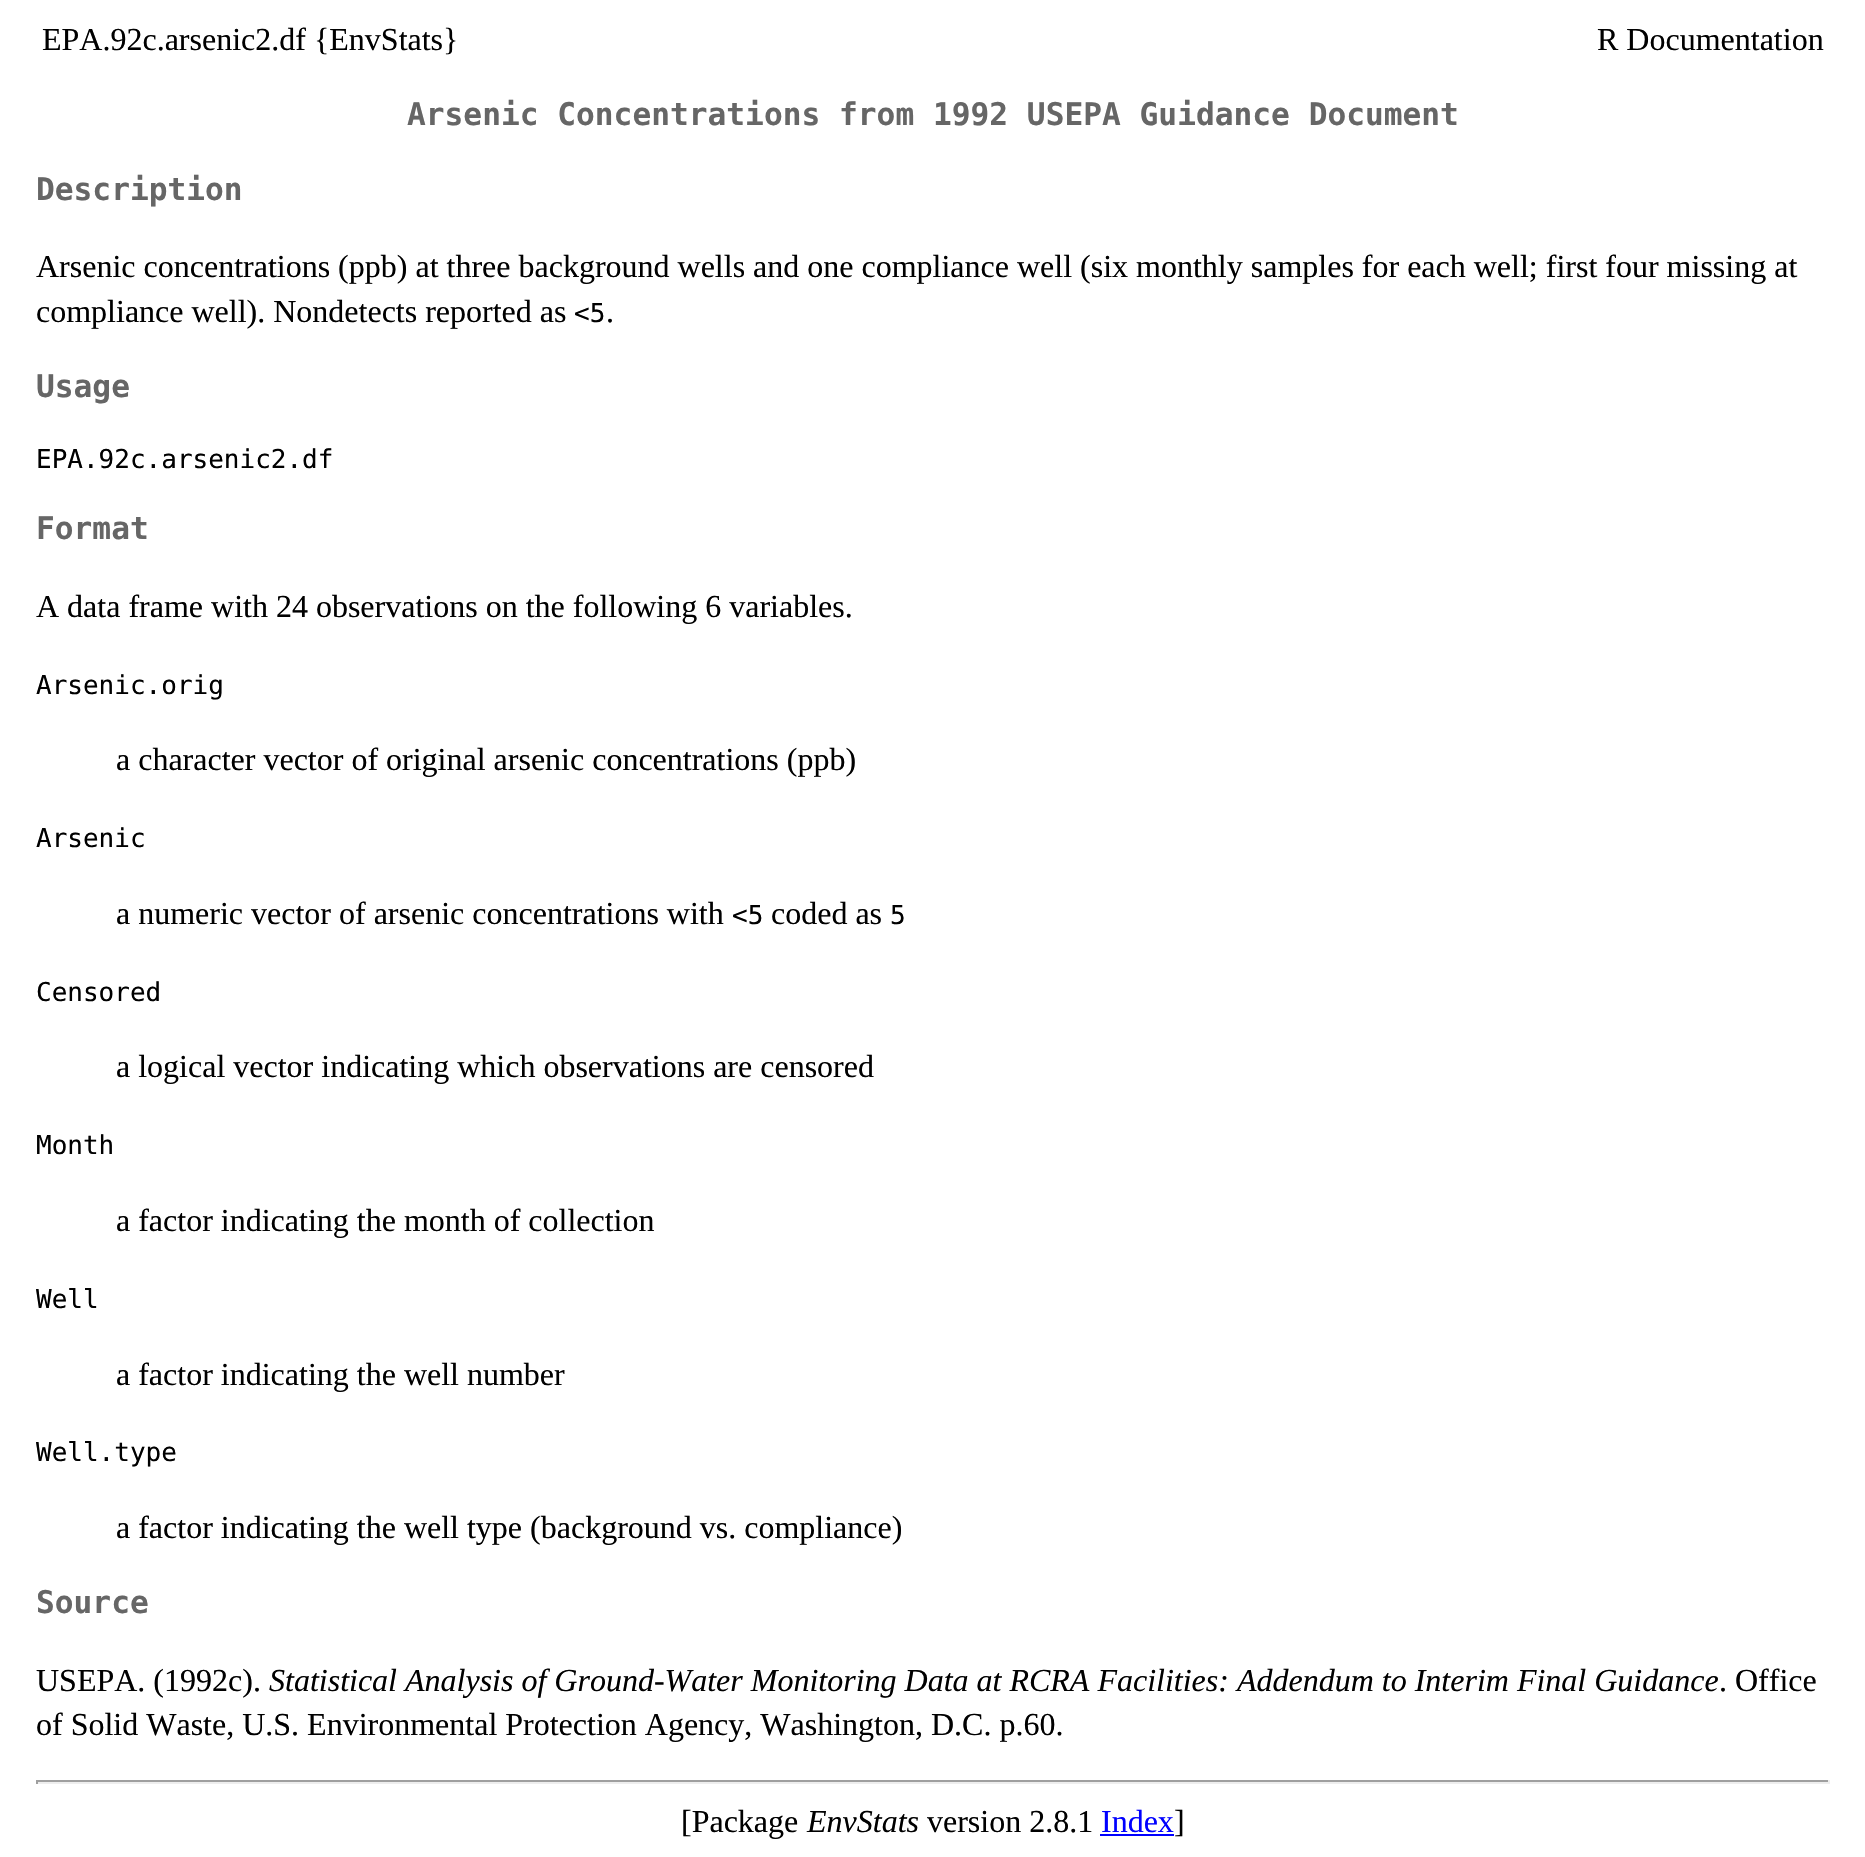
void draw(SkCanvas* canvas) {
  SkPaint paint;
  paint.setAntiAlias(true);
  auto face = [&](const char* family, int weight, float size, bool italic = false) {
    SkFontStyle style(weight, SkFontStyle::kNormal_Width,
      italic ? SkFontStyle::kItalic_Slant : SkFontStyle::kUpright_Slant);
    SkFont result(fontMgr->matchFamilyStyle(family, style), size);
    result.setSubpixel(true);
    return result;
  };
  canvas->clear(0xffffffff);
  {
    const struct { float x, y, w, h; SkColor color; } items[] = {
      {36, 1780, 1794, 2, 0xff9f9f9f},
      {1828, 1780, 2, 4, 0xffeeeeee},
      {36, 1782, 1794, 2, 0xffeeeeee},
      {36, 1780, 2, 4, 0xff9f9f9f},
      {1100, 1834, 74, 2, 0xff0000ff},
    };
    for (auto [x, y, w, h, color] : items) {
      paint.setColor(color);
      canvas->drawRect(SkRect::MakeXYWH(x, y, w, h), paint);
    }
  }
  auto f0 = face("Liberation Serif", 400, 32);
  paint.setColor(0xff000000);
  canvas->drawString("EPA.92c.arsenic2.df {EnvStats}", 42, 50, f0, paint);
  canvas->drawString("R Documentation", 1597, 50, f0, paint);
  auto f1 = face("DejaVu Sans Mono", 700, 31.2f);
  paint.setColor(0xff666666);
  canvas->drawString("Arsenic Concentrations from 1992 USEPA Guidance Document", 407, 125, f1, paint);
  canvas->drawString("Description", 36, 200, f1, paint);
  paint.setColor(0xff000000);
  canvas->drawString("Arsenic concentrations (ppb) at three background wells and one compliance well (six monthly samples for each well; first four missing at", 36, 277, f0, paint);
  canvas->drawString("compliance well). Nondetects reported as", 36, 322, f0, paint);
  auto f2 = face("DejaVu Sans Mono", 400, 26);
  canvas->drawString("<5", 574, 322, f2, paint);
  canvas->drawString(".", 606, 322, f0, paint);
  paint.setColor(0xff666666);
  canvas->drawString("Usage", 36, 397, f1, paint);
  paint.setColor(0xff000000);
  canvas->drawString("EPA.92c.arsenic2.df", 36, 468, f2, paint);
  paint.setColor(0xff666666);
  canvas->drawString("Format", 36, 539, f1, paint);
  paint.setColor(0xff000000);
  canvas->drawString("A data frame with 24 observations on the following 6 variables.", 36, 617, f0, paint);
  canvas->drawString("Arsenic.orig", 36, 694, f2, paint);
  canvas->drawString("a character vector of original arsenic concentrations (ppb)", 116, 770, f0, paint);
  canvas->drawString("Arsenic", 36, 847, f2, paint);
  canvas->drawString("a numeric vector of arsenic concentrations with", 116, 924, f0, paint);
  canvas->drawString("<5", 732, 924, f2, paint);
  canvas->drawString("coded as", 771, 924, f0, paint);
  canvas->drawString("5", 890, 924, f2, paint);
  canvas->drawString("Censored", 36, 1001, f2, paint);
  canvas->drawString("a logical vector indicating which observations are censored", 116, 1077, f0, paint);
  canvas->drawString("Month", 36, 1154, f2, paint);
  canvas->drawString("a factor indicating the month of collection", 116, 1231, f0, paint);
  canvas->drawString("Well", 36, 1308, f2, paint);
  canvas->drawString("a factor indicating the well number", 116, 1385, f0, paint);
  canvas->drawString("Well.type", 36, 1461, f2, paint);
  canvas->drawString("a factor indicating the well type (background vs. compliance)", 116, 1538, f0, paint);
  paint.setColor(0xff666666);
  canvas->drawString("Source", 36, 1613, f1, paint);
  paint.setColor(0xff000000);
  canvas->drawString("USEPA. (1992c).", 36, 1691, f0, paint);
  auto f3 = face("Liberation Serif", 400, 32, true);
  canvas->drawString("Statistical Analysis of Ground-Water Monitoring Data at RCRA Facilities: Addendum to Interim Final Guidance", 269, 1691, f3, paint);
  {
    const struct { const char* s; float x, y; } items[] = {
      {". Office", 1719, 1691},
      {"of Solid Waste, U.S. Environmental Protection Agency, Washington, D.C. p.60.", 36, 1735},
      {"[Package", 681, 1832},
    };
    for (auto [s, x, y] : items) {
      canvas->drawString(s, x, y, f0, paint);
    }
  }
  canvas->drawString("EnvStats", 807, 1832, f3, paint);
  canvas->drawString("version 2.8.1", 927, 1832, f0, paint);
  paint.setColor(0xff0000ff);
  canvas->drawString("Index", 1101, 1832, f0, paint);
  paint.setColor(0xff000000);
  canvas->drawString("]", 1174, 1832, f0, paint);
}
